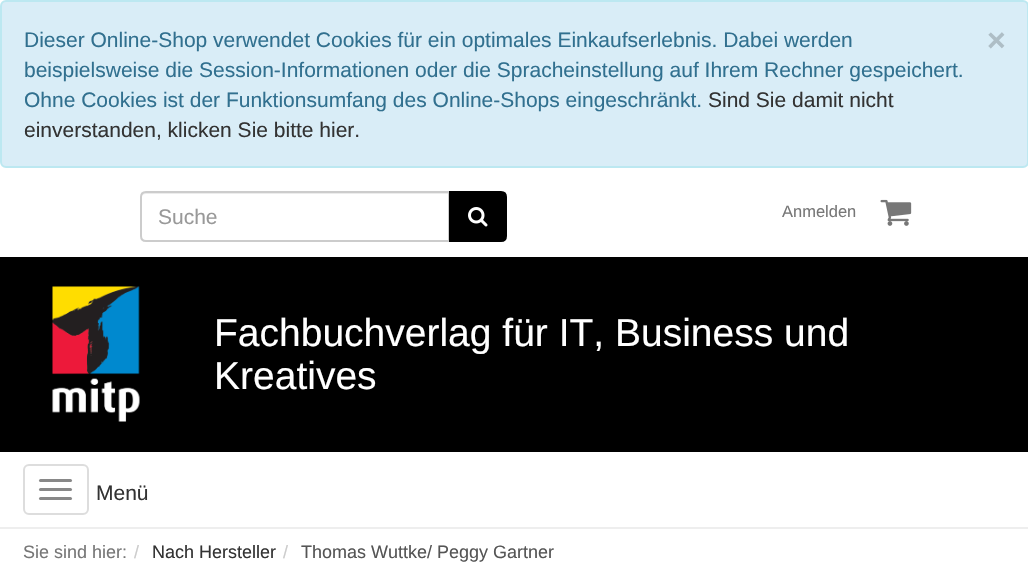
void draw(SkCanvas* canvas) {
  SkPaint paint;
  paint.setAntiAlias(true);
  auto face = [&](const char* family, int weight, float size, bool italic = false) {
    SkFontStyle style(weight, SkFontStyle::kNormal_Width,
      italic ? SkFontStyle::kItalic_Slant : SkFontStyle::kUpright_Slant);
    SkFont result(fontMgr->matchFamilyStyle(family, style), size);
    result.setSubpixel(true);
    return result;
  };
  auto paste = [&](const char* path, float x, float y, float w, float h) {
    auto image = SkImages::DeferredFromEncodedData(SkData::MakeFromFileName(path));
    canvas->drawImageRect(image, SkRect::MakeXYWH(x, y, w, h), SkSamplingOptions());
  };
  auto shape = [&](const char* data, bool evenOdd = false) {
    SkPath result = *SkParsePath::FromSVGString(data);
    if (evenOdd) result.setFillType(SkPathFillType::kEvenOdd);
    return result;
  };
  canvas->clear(0xffffffff);
  paint.setColor(0xffd9edf7);
  canvas->drawRoundRect(SkRect::MakeXYWH(1, 1, 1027, 166), 5, 5, paint);
  paint.setStroke(true);
  paint.setStrokeWidth(2);
  paint.setColor(0xffbce8f1);
  canvas->drawRoundRect(SkRect::MakeXYWH(1, 1, 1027, 166), 5, 5, paint);
  paint.setStroke(false);
  paint.setColor(0xffececec);
  canvas->drawPath(shape("M146 194H448V240H449V192H146C143 192 141 195 141 198C141 196 143 194 146 194Z"), paint);
  paint.setStroke(true);
  paint.setColor(0xffcccccc);
  canvas->drawPath(shape("M146 192H449V241H146C143 241 141 239 141 236V197C141 194 143 192 146 192Z"), paint);
  paint.setStroke(false);
  paint.setColor(0xff000000);
  canvas->drawPath(shape("M450 192H501C504 192 506 194 506 197V236C506 239 504 241 501 241H450Z"), paint);
  paint.setStroke(true);
  canvas->drawPath(shape("M450 192H501C504 192 506 194 506 197V236C506 239 504 241 501 241H450Z"), paint);
  paste("img/1.png", 468, 207, 20, 20);
  paste("img/2.png", 880, 199, 32, 27);
  paint.setStroke(false);
  canvas->drawRect(SkRect::MakeXYWH(0, 257, 1028, 195), paint);
  paste("img/3.png", 52, 286, 88, 136);
  paint.setColor(0xffeeeeee);
  canvas->drawRect(SkRect::MakeXYWH(0, 527, 1028, 2), paint);
  paint.setStroke(true);
  paint.setColor(0xffdddddd);
  canvas->drawRoundRect(SkRect::MakeXYWH(24, 465, 64, 49), 5, 5, paint);
  paint.setStroke(false);
  paint.setColor(0xff888888);
  canvas->drawRoundRect(SkRect::MakeXYWH(39, 479, 33, 3), 1.5f, 1.5f, paint);
  canvas->drawRoundRect(SkRect::MakeXYWH(39, 488, 33, 3), 1.5f, 1.5f, paint);
  canvas->drawRoundRect(SkRect::MakeXYWH(39, 497, 33, 3), 1.5f, 1.5f, paint);
  auto f0 = face("Liberation Sans", 400, 21);
  paint.setColor(0xff31708f);
  canvas->drawString("Dieser Online-Shop verwendet Cookies für ein optimales Einkaufserlebnis. Dabei werden", 24, 47, f0, paint);
  auto f1 = face("Liberation Sans", 700, 32);
  paint.setColor(0xffaebec6);
  canvas->drawString("×", 987, 51, f1, paint);
  paint.setColor(0xff31708f);
  canvas->drawString("beispielsweise die Session-Informationen oder die Spracheinstellung auf Ihrem Rechner gespeichert.", 24, 77, f0, paint);
  canvas->drawString("Ohne Cookies ist der Funktionsumfang des Online-Shops eingeschränkt.", 24, 107, f0, paint);
  paint.setColor(0xff333333);
  canvas->drawString("Sind Sie damit nicht", 708, 107, f0, paint);
  canvas->drawString("einverstanden, klicken Sie bitte hier.", 24, 137, f0, paint);
  paint.setColor(0xff999999);
  canvas->drawString("Suche", 158, 224, f0, paint);
  auto f2 = face("Liberation Sans", 400, 16.5f);
  paint.setColor(0xff777777);
  canvas->drawString("Anmelden", 782, 217, f2, paint);
  auto f3 = face("Liberation Sans", 400, 39);
  paint.setColor(0xffffffff);
  canvas->drawString("Fachbuchverlag für IT, Business und", 214, 346, f3, paint);
  canvas->drawString("Kreatives", 214, 389, f3, paint);
  paint.setColor(0xff333333);
  canvas->drawString("Menü", 96, 500, f0, paint);
  auto f4 = face("Liberation Sans", 400, 18);
  paint.setColor(0xff777777);
  canvas->drawString("Sie sind hier:", 23, 558, f4, paint);
  paint.setColor(0xffcccccc);
  canvas->drawString("/", 134, 558, f4, paint);
  paint.setColor(0xff333333);
  canvas->drawString("Nach Hersteller", 152, 558, f4, paint);
  paint.setColor(0xffcccccc);
  canvas->drawString("/", 283, 558, f4, paint);
  paint.setColor(0xff555555);
  canvas->drawString("Thomas Wuttke/ Peggy Gartner", 301, 558, f4, paint);
}
